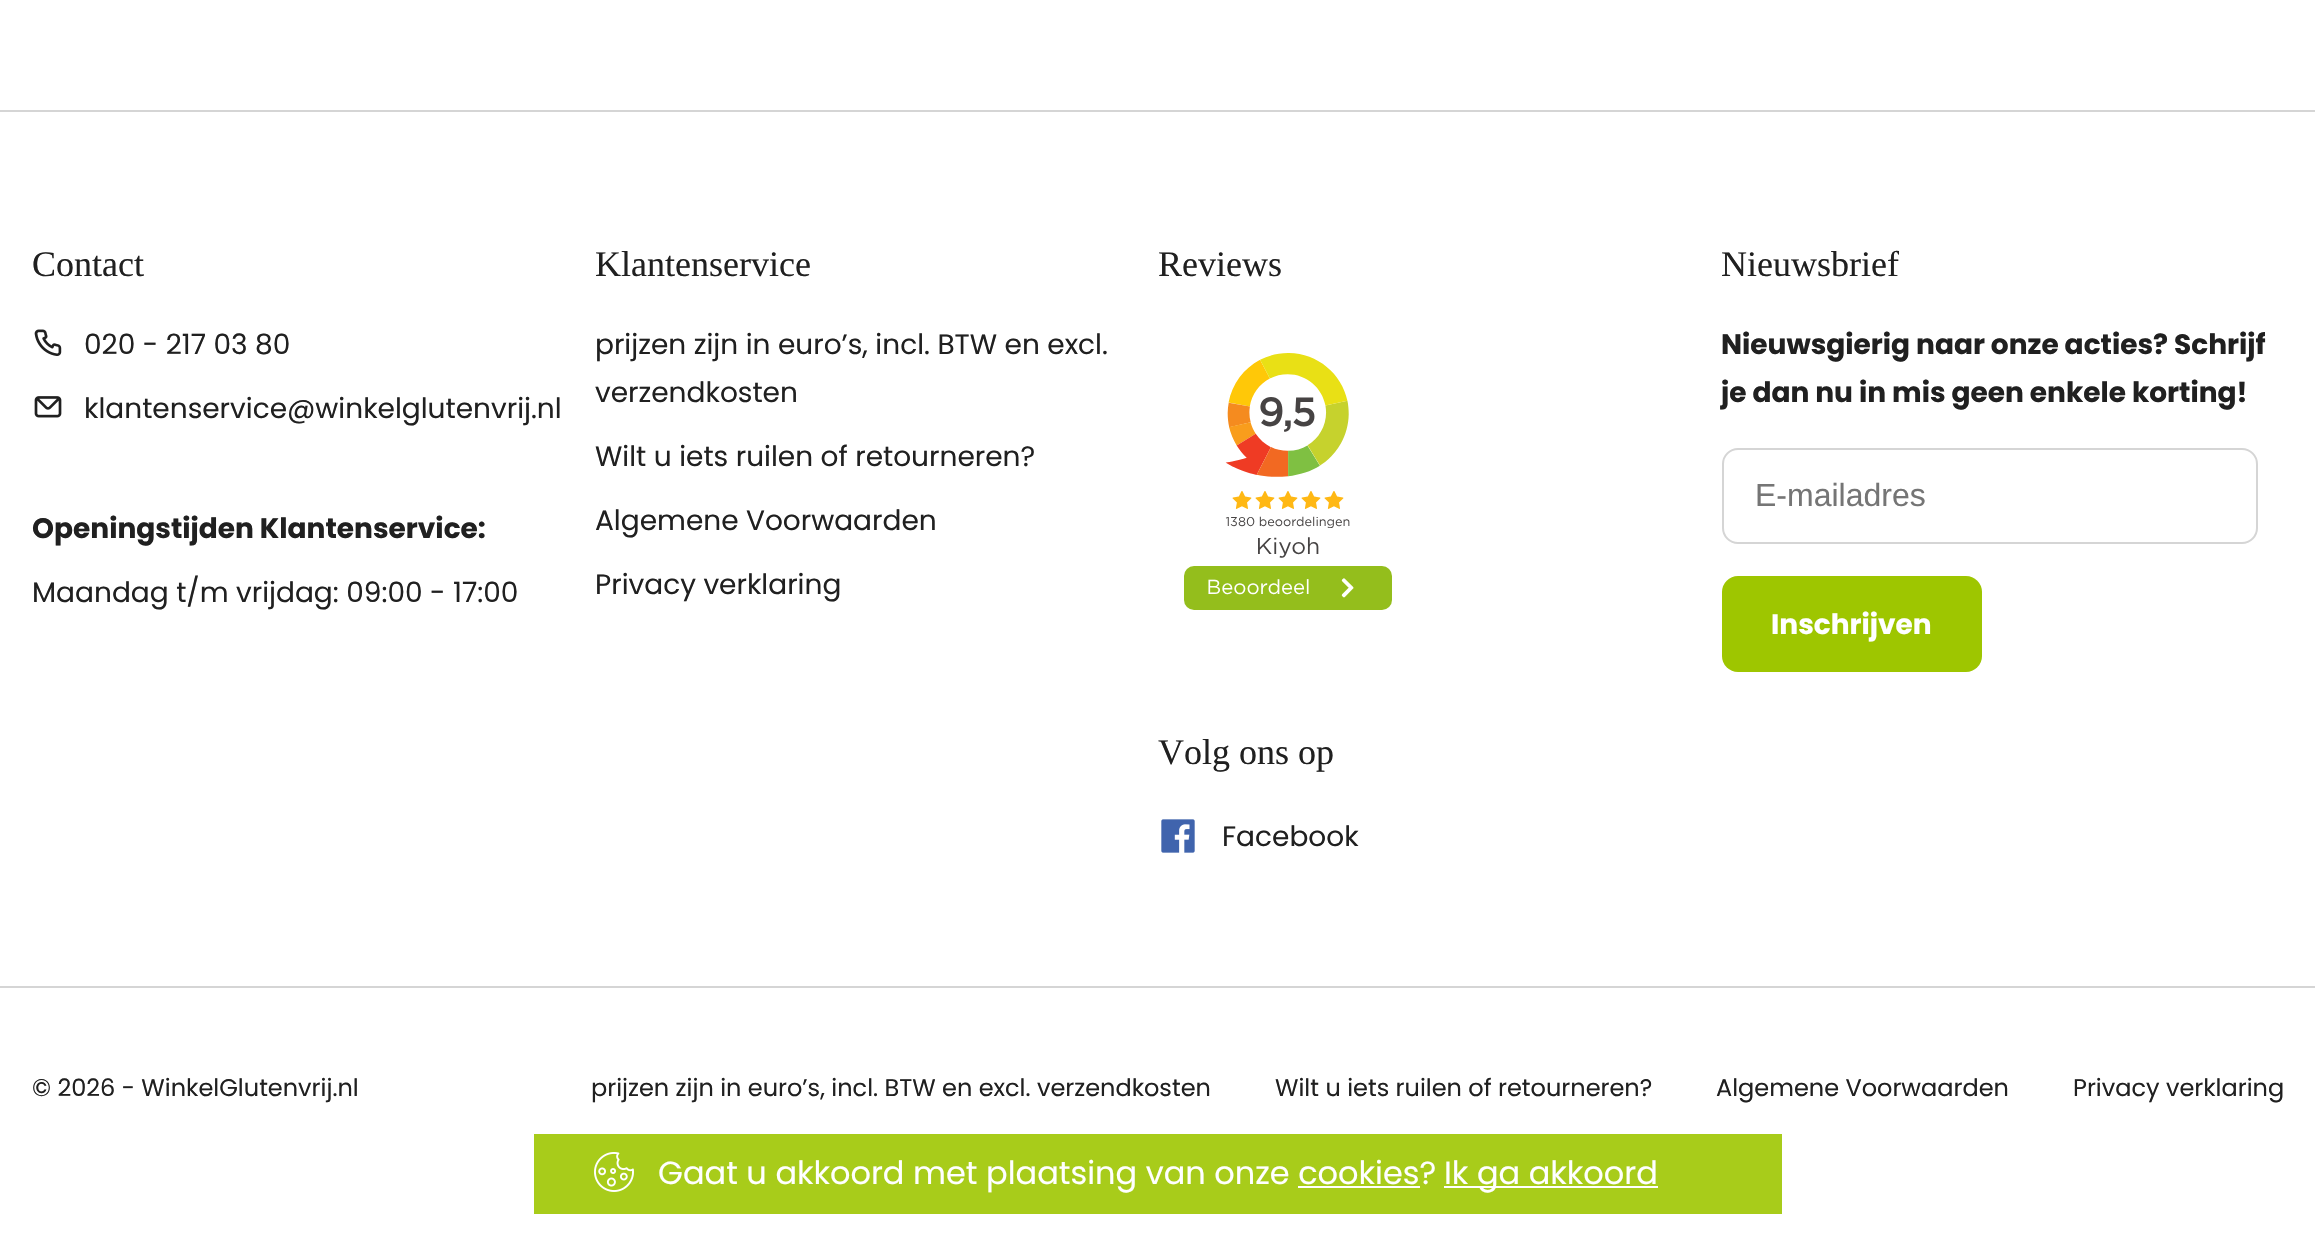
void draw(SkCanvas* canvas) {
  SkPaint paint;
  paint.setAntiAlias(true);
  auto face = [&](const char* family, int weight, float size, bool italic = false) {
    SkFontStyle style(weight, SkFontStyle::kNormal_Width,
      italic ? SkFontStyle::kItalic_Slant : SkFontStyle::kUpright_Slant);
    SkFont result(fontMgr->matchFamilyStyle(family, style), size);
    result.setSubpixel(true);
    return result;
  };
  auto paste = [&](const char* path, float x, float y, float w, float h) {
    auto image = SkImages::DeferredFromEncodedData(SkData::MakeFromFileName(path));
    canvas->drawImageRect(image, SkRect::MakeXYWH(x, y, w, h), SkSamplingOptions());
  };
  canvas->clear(0xffffffff);
  paint.setColor(0xffd5d5d5);
  canvas->drawRect(SkRect::MakeXYWH(0, 110, 2315, 2), paint);
  paste("img/1.png", 34, 329, 28, 27);
  paste("img/2.png", 34, 396, 28, 22);
  paste("img/3.png", 1184, 353, 208, 257);
  paste("img/4.png", 1161, 819, 34, 34);
  paint.setStroke(true);
  paint.setStrokeWidth(2);
  canvas->drawRoundRect(SkRect::MakeXYWH(1723, 449, 534, 94), 15, 15, paint);
  paint.setStroke(false);
  paint.setColor(0xff9ec600);
  canvas->drawRoundRect(SkRect::MakeXYWH(1722, 576, 260, 96), 16, 16, paint);
  paint.setColor(0xffd5d5d5);
  canvas->drawRect(SkRect::MakeXYWH(0, 986, 2315, 2), paint);
  paint.setColor(0xffa8cc1a);
  canvas->drawRect(SkRect::MakeXYWH(534, 1134, 1248, 80), paint);
  paste("img/5.png", 594, 1152, 40, 40);
  paint.setColor(0xffffffff);
  canvas->drawRect(SkRect::MakeXYWH(1444, 1186, 214, 2), paint);
  canvas->drawRect(SkRect::MakeXYWH(1298, 1186, 122, 2), paint);
  auto f0 = face("Liberation Serif", 400, 36);
  paint.setColor(0xff202020);
  canvas->drawString("Contact", 32, 276, f0, paint);
  auto f1 = face("Poppins", 400, 28);
  canvas->drawString("020 - 217 03 80", 84, 354, f1, paint);
  canvas->drawString("klantenservice@winkelglutenvrij.nl", 84, 418, f1, paint);
  auto f2 = face("Poppins", 700, 28);
  canvas->drawString("Openingstijden Klantenservice:", 32, 538, f2, paint);
  canvas->drawString("Maandag t/m vrijdag: 09:00 - 17:00", 32, 602, f1, paint);
  canvas->drawString("Klantenservice", 595, 276, f0, paint);
  {
    const struct { const char* s; float x, y; } items[] = {
      {"prijzen zijn in euro’s, incl. BTW en excl.", 595, 354},
      {"verzendkosten", 595, 402},
      {"Wilt u iets ruilen of retourneren?", 595, 466},
      {"Algemene Voorwaarden", 595, 530},
      {"Privacy verklaring", 595, 594},
    };
    for (auto [s, x, y] : items) {
      canvas->drawString(s, x, y, f1, paint);
    }
  }
  canvas->drawString("Reviews", 1158, 276, f0, paint);
  canvas->drawString("Volg ons op", 1158, 764, f0, paint);
  canvas->drawString("Facebook", 1222, 846, f1, paint);
  canvas->drawString("Nieuwsbrief", 1721, 276, f0, paint);
  canvas->drawString("Nieuwsgierig naar onze acties? Schrijf", 1721, 354, f2, paint);
  canvas->drawString("je dan nu in mis geen enkele korting!", 1721, 402, f2, paint);
  auto f3 = face("Liberation Sans", 400, 32);
  paint.setColor(0xff757575);
  canvas->drawString("E-mailadres", 1755, 506, f3, paint);
  paint.setColor(0xffffffff);
  canvas->drawString("Inschrijven", 1771, 634, f2, paint);
  auto f4 = face("Poppins", 400, 24);
  paint.setColor(0xff202020);
  {
    const struct { const char* s; float x, y; } items[] = {
      {"© 2026 - WinkelGlutenvrij.nl", 32, 1096},
      {"prijzen zijn in euro’s, incl. BTW en excl. verzendkosten", 591, 1096},
      {"Wilt u iets ruilen of retourneren?", 1275, 1096},
      {"Algemene Voorwaarden", 1716, 1096},
      {"Privacy verklaring", 2073, 1096},
    };
    for (auto [s, x, y] : items) {
      canvas->drawString(s, x, y, f4, paint);
    }
  }
  auto f5 = face("Poppins", 400, 32);
  paint.setColor(0xffffffff);
  canvas->drawString("Gaat u akkoord met plaatsing van onze cookies?", 658, 1184, f5, paint);
  canvas->drawString("Ik ga akkoord", 1444, 1184, f5, paint);
}
